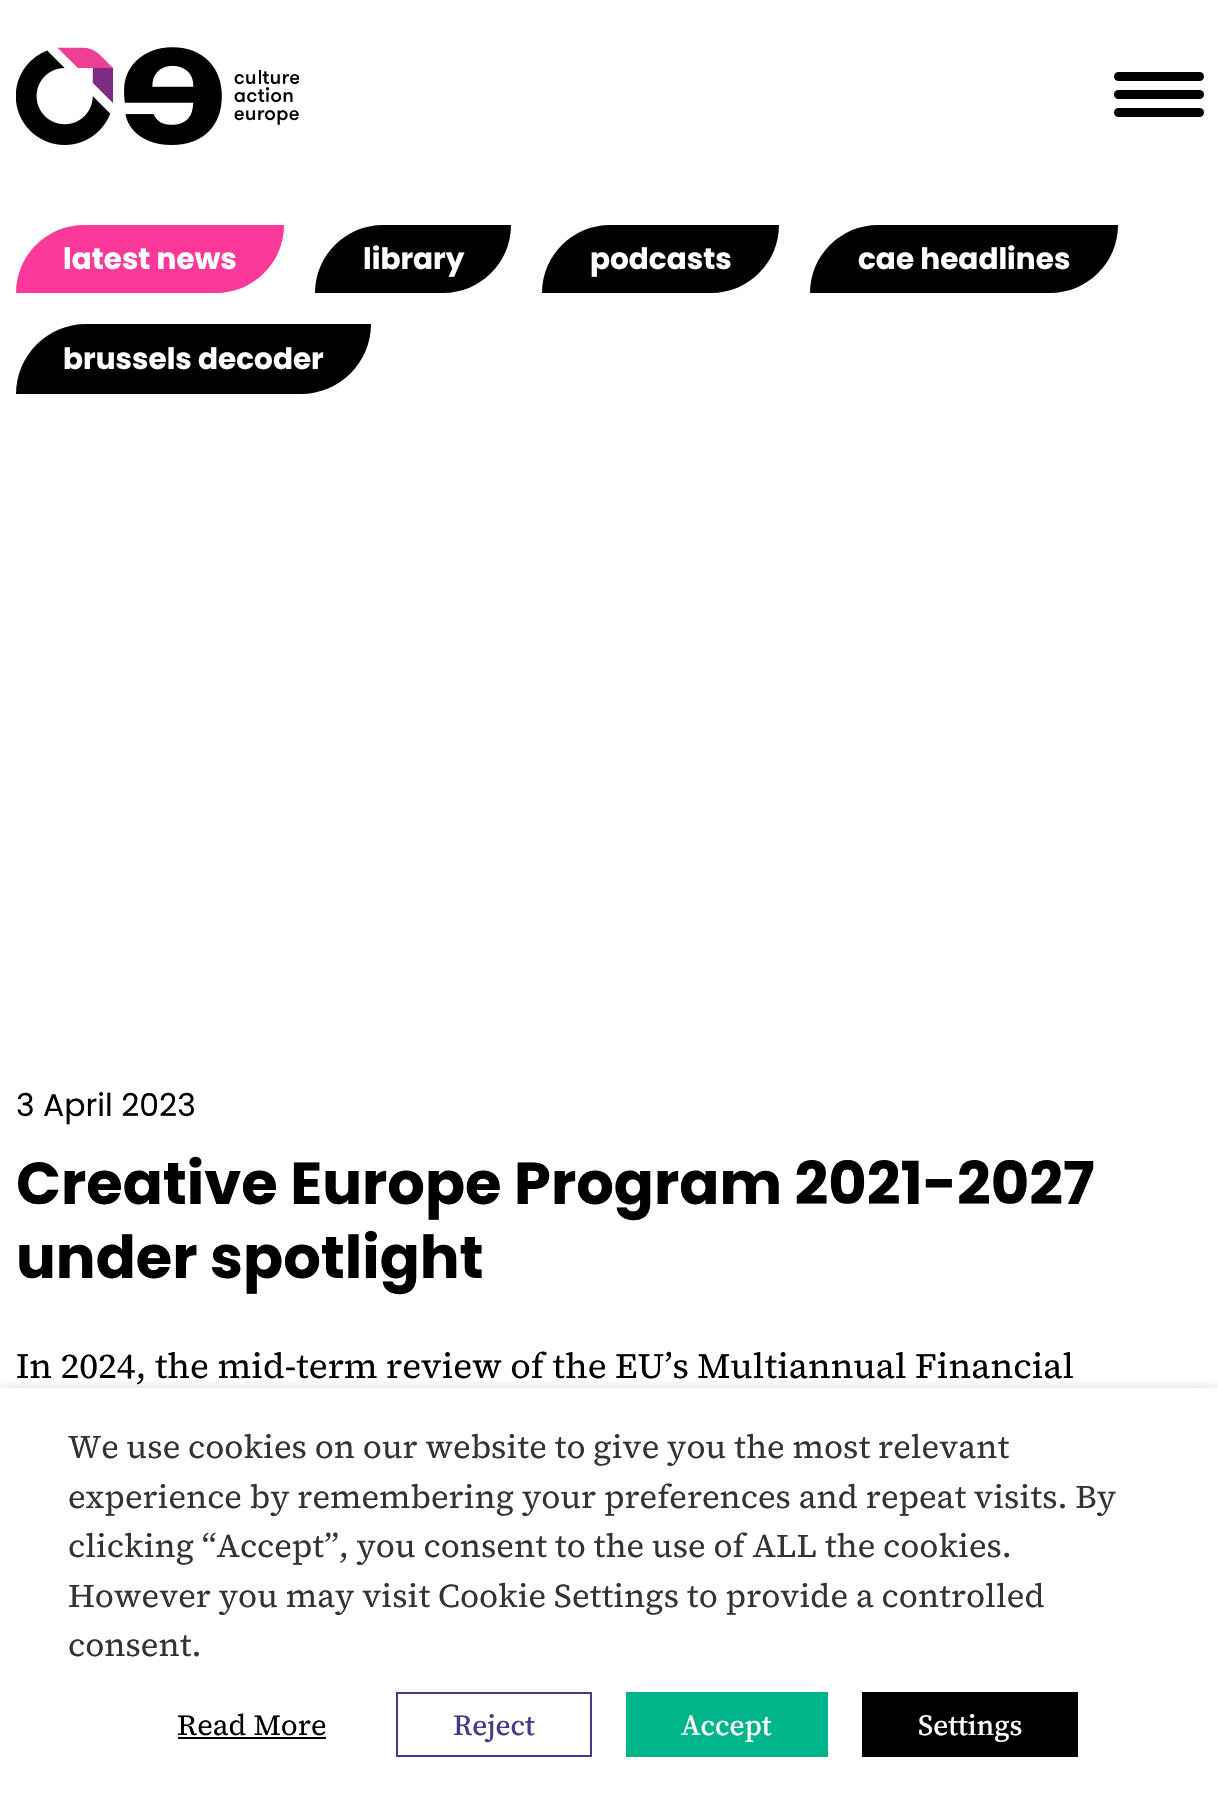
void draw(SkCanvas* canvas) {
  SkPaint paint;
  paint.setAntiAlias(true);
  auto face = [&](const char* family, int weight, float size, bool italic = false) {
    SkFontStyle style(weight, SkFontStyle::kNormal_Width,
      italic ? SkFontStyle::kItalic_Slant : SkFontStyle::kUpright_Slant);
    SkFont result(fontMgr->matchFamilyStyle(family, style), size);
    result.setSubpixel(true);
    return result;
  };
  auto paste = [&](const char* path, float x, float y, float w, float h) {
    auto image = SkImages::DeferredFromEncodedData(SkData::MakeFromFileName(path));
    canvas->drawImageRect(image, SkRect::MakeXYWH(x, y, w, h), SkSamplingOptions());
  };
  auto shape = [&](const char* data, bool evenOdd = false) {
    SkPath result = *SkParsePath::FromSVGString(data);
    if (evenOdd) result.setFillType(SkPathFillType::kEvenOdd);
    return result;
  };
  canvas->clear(0xffffffff);
  paste("img/1.png", 16, 47, 283, 98);
  paint.setColor(0xff000000);
  canvas->drawRoundRect(SkRect::MakeXYWH(1114, 108, 90, 9), 4.5f, 4.5f, paint);
  canvas->drawRoundRect(SkRect::MakeXYWH(1114, 72, 90, 9), 4.5f, 4.5f, paint);
  canvas->drawRoundRect(SkRect::MakeXYWH(1114, 90, 90, 9), 4.5f, 4.5f, paint);
  paint.setColor(0xfffc389a);
  canvas->drawPath(shape("M84 225H284C284 262.5 253.5 293 216 293H16C16 255.5 46.5 225 84 225Z"), paint);
  paint.setColor(0xff000000);
  canvas->drawPath(shape("M383 225H511C511 262.5 480.5 293 443 293H315C315 255.5 345.5 225 383 225Z"), paint);
  canvas->drawPath(shape("M610 225H779C779 262.5 748.5 293 711 293H542C542 255.5 572.5 225 610 225Z"), paint);
  canvas->drawPath(shape("M878 225H1118C1118 262.5 1087.5 293 1050 293H810C810 255.5 840.5 225 878 225Z"), paint);
  canvas->drawPath(shape("M86 324H371C371 362.5 339.5 394 301 394H16C16 355.5 47.5 324 86 324Z"), paint);
  canvas->save();
  canvas->clipRect(SkRect::MakeXYWH(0, 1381, 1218, 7));
  paint.setColor(0x80000000);
  paint.setMaskFilter(SkMaskFilter::MakeBlur(kNormal_SkBlurStyle, 11));
  canvas->drawRect(SkRect::MakeXYWH(0, 1400, 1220, 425), paint);
  paint.setMaskFilter(nullptr);
  canvas->restore();
  paint.setColor(0xf7ffffff);
  canvas->drawRect(SkRect::MakeXYWH(2, 1388, 1216, 1), paint);
  paint.setColor(0xff000000);
  canvas->drawRect(SkRect::MakeXYWH(178, 1737, 148, 2), paint);
  paint.setStroke(true);
  paint.setStrokeWidth(2);
  paint.setColor(0xff453b89);
  canvas->drawRect(SkRect::MakeXYWH(397, 1693, 194, 63), paint);
  paint.setStroke(false);
  paint.setColor(0xff00b58a);
  canvas->drawRect(SkRect::MakeXYWH(626, 1692, 202, 65), paint);
  paint.setColor(0xff000000);
  canvas->drawRect(SkRect::MakeXYWH(862, 1692, 216, 65), paint);
  auto f0 = face("Poppins", 700, 29.5f);
  paint.setColor(0xffffffff);
  {
    const struct { const char* s; float x, y; } items[] = {
      {"latest news", 63, 269},
      {"library", 363, 269},
      {"podcasts", 590, 269},
      {"cae headlines", 858, 269},
      {"brussels decoder", 63, 369},
    };
    for (auto [s, x, y] : items) {
      canvas->drawString(s, x, y, f0, paint);
    }
  }
  auto f1 = face("Poppins", 400, 31.5f);
  paint.setColor(0xff000000);
  canvas->drawString("3 April 2023", 16, 1116, f1, paint);
  auto f2 = face("Poppins", 700, 59.1f);
  canvas->drawString("Creative Europe Program 2021-2027", 16, 1204, f2, paint);
  canvas->drawString("under spotlight", 16, 1278, f2, paint);
  auto f3 = face("Source Serif 4", 400, 35.45f);
  canvas->drawString("In 2024, the mid-term review of the EU’s Multiannual Financial", 16, 1378, f3, paint);
  auto f4 = face("Source Serif 4", 400, 33);
  paint.setColor(0xff333333);
  {
    const struct { const char* s; float x, y; } items[] = {
      {"We use cookies on our website to give you the most relevant", 68, 1458},
      {"experience by remembering your preferences and repeat visits. By", 68, 1508},
      {"clicking “Accept”, you consent to the use of ALL the cookies.", 68, 1557},
      {"However you may visit Cookie Settings to provide a controlled", 68, 1607},
      {"consent.", 68, 1656},
    };
    for (auto [s, x, y] : items) {
      canvas->drawString(s, x, y, f4, paint);
    }
  }
  auto f5 = face("Source Serif 4", 400, 29.25f);
  paint.setColor(0xff000000);
  canvas->drawString("Read More", 177, 1735, f5, paint);
  auto f6 = face("Source Serif 4", 500, 29.25f);
  paint.setColor(0xff453b89);
  canvas->drawString("Reject", 453, 1735, f6, paint);
  paint.setColor(0xffffffff);
  canvas->drawString("Accept", 681, 1735, f6, paint);
  canvas->drawString("Settings", 918, 1735, f6, paint);
}
